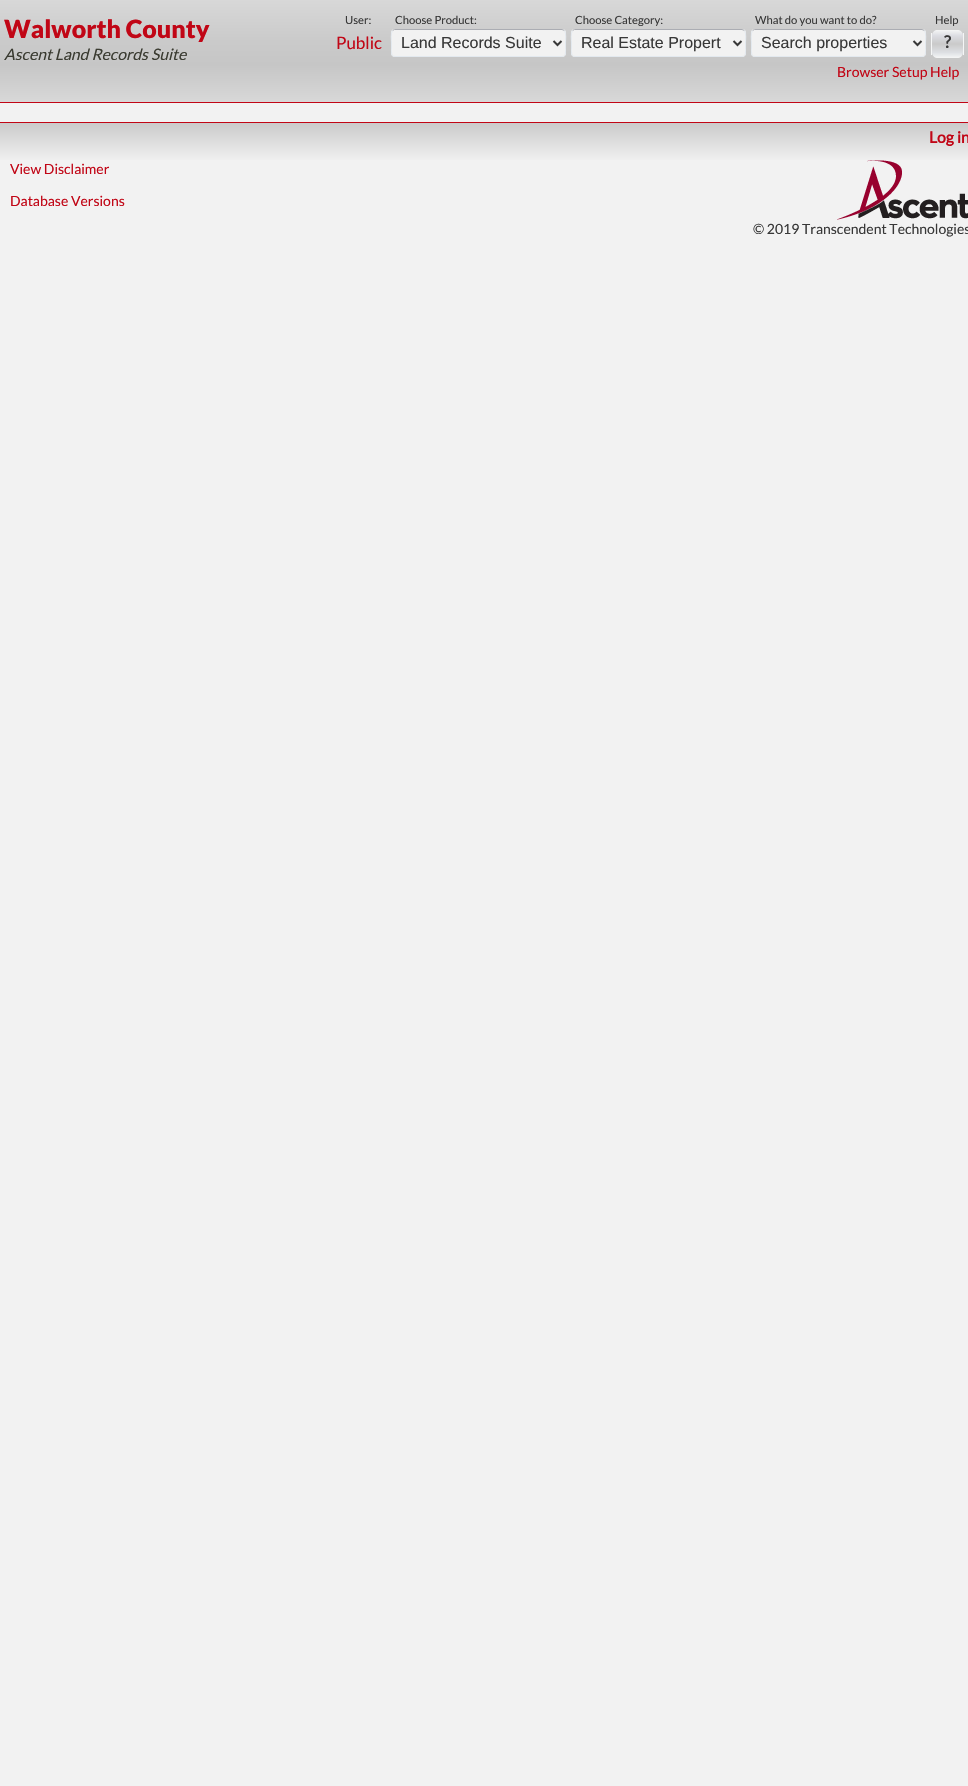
void draw(SkCanvas* canvas) {
  SkPaint paint;
  paint.setAntiAlias(true);
  auto face = [&](const char* family, int weight, float size, bool italic = false) {
    SkFontStyle style(weight, SkFontStyle::kNormal_Width,
      italic ? SkFontStyle::kItalic_Slant : SkFontStyle::kUpright_Slant);
    SkFont result(fontMgr->matchFamilyStyle(family, style), size);
    result.setSubpixel(true);
    return result;
  };
  auto paste = [&](const char* path, float x, float y, float w, float h) {
    auto image = SkImages::DeferredFromEncodedData(SkData::MakeFromFileName(path));
    canvas->drawImageRect(image, SkRect::MakeXYWH(x, y, w, h), SkSamplingOptions());
  };
  auto shape = [&](const char* data, bool evenOdd = false) {
    SkPath result = *SkParsePath::FromSVGString(data);
    if (evenOdd) result.setFillType(SkPathFillType::kEvenOdd);
    return result;
  };
  canvas->clear(0xfff2f2f2);
  {
    const SkColor colors[] = {0xffd8d8d8, 0xffcacaca, 0xffc6c6c6, 0xffd8d8d8};
    const float stops[] = {0, 0.41f, 0.64f, 1};
    const SkPoint ends[] = {{484, 0}, {484, 102}};
    paint.setShader(SkGradientShader::MakeLinear(ends, colors, stops, 4, SkTileMode::kClamp));
    paint.setAlpha(255);
  }
  canvas->drawRect(SkRect::MakeXYWH(0, 0, 968, 102), paint);
  paint.setShader(nullptr);
  paint.setColor(0xffc10616);
  canvas->drawRect(SkRect::MakeXYWH(0, 102, 968, 1), paint);
  paint.setColor(0xfff2f2f2);
  canvas->drawRoundRect(SkRect::MakeXYWH(391, 29, 175, 28), 4, 4, paint);
  paint.setStroke(true);
  paint.setStrokeWidth(1);
  paint.setColor(0xffabadb3);
  canvas->drawPath(shape("M392.5 30.5L394.5 29.5H534H562L564.5 30.5"), paint);
  paint.setColor(0xffe3e9ef);
  canvas->drawPath(shape("M564.5 30.5C566.5 33 565.5 40.5 565.5 43V49.5C565.5 52.5 566 56.5 562 56.5H395C391 56.5 391.5 52.5 391.5 49.5V43C391.5 40.5 390.5 33 392.5 30.5"), paint);
  paint.setStrokeWidth(2);
  paint.setColor(0xff383838);
  canvas->drawPath(shape("M553.5 41L557.5 45L561.5 41"), paint);
  paint.setStroke(false);
  paint.setColor(0xfff2f2f2);
  canvas->drawRoundRect(SkRect::MakeXYWH(571, 29, 175, 28), 4, 4, paint);
  paint.setStroke(true);
  paint.setStrokeWidth(1);
  paint.setColor(0xffabadb3);
  canvas->drawPath(shape("M572.5 30.5L574.5 29.5H714H742L744.5 30.5"), paint);
  paint.setColor(0xffe3e9ef);
  canvas->drawPath(shape("M744.5 30.5C746.5 33 745.5 40.5 745.5 43V49.5C745.5 52.5 746 56.5 742 56.5H575C571 56.5 571.5 52.5 571.5 49.5V43C571.5 40.5 570.5 33 572.5 30.5"), paint);
  paint.setStrokeWidth(2);
  paint.setColor(0xff383838);
  canvas->drawPath(shape("M733.5 41L737.5 45L741.5 41"), paint);
  paint.setStroke(false);
  paint.setColor(0xfff2f2f2);
  canvas->drawRoundRect(SkRect::MakeXYWH(751, 29, 175, 28), 4, 4, paint);
  paint.setStroke(true);
  paint.setStrokeWidth(1);
  paint.setColor(0xffabadb3);
  canvas->drawPath(shape("M752.5 30.5L754.5 29.5H894H922L924.5 30.5"), paint);
  paint.setColor(0xffe3e9ef);
  canvas->drawPath(shape("M924.5 30.5C926.5 33 925.5 40.5 925.5 43V49.5C925.5 52.5 926 56.5 922 56.5H755C751 56.5 751.5 52.5 751.5 49.5V43C751.5 40.5 750.5 33 752.5 30.5"), paint);
  paint.setStrokeWidth(2);
  paint.setColor(0xff383838);
  canvas->drawPath(shape("M913.5 41L917.5 45L921.5 41"), paint);
  paste("img/1.png", 932, 30, 31, 28);
  paint.setStroke(false);
  paint.setColor(0xfff5f6f6);
  canvas->drawRect(SkRect::MakeXYWH(963, 33, 1, 22), paint);
  canvas->drawRect(SkRect::MakeXYWH(931, 33, 1, 22), paint);
  {
    const SkColor colors[] = {0xffcacaca, 0xfff2f2f2};
    const float stops[] = {0, 1};
    const SkPoint ends[] = {{490, 123}, {490, 163}};
    paint.setShader(SkGradientShader::MakeLinear(ends, colors, stops, 2, SkTileMode::kClamp));
    paint.setAlpha(255);
  }
  canvas->drawRect(SkRect::MakeXYWH(0, 123, 968, 37), paint);
  paint.setShader(nullptr);
  paint.setColor(0xffc10616);
  canvas->drawRect(SkRect::MakeXYWH(0, 122, 968, 1), paint);
  paste("img/2.png", 837, 160, 131, 60);
  auto f0 = face("Lato", 900, 25);
  canvas->drawString("Walworth County", 4, 38, f0, paint);
  auto f1 = face("Lato", 400, 15.75f, true);
  paint.setColor(0xff3a3b31);
  canvas->drawString("Ascent Land Records Suite", 4, 60, f1, paint);
  auto f2 = face("Lato", 400, 11.25f);
  paint.setColor(0xff383838);
  canvas->drawString("User:", 345, 24, f2, paint);
  auto f3 = face("Lato", 400, 17);
  paint.setColor(0xffc10616);
  canvas->drawString("Public", 336, 49, f3, paint);
  paint.setColor(0xff383838);
  canvas->drawString("Choose Product:", 395, 24, f2, paint);
  auto f4 = face("Liberation Sans", 400, 16);
  canvas->drawString("Land Records Suite", 401, 48, f4, paint);
  canvas->drawString("Choose Category:", 575, 24, f2, paint);
  canvas->drawString("Real Estate Propert", 581, 48, f4, paint);
  canvas->drawString("What do you want to do?", 755, 24, f2, paint);
  canvas->drawString("Search properties", 761, 48, f4, paint);
  canvas->drawString("Help", 935, 24, f2, paint);
  auto f5 = face("Lato", 700, 17);
  canvas->drawString("?", 944, 48, f5, paint);
  auto f6 = face("Lato", 400, 14);
  paint.setColor(0xffc10616);
  canvas->drawString("Browser Setup Help", 837, 77, f6, paint);
  auto f7 = face("Lato", 700, 15.75f);
  canvas->drawString("Log in", 929, 143, f7, paint);
  canvas->drawString("View Disclaimer", 10, 174, f6, paint);
  canvas->drawString("Database Versions", 10, 206, f6, paint);
  paint.setColor(0xff383838);
  canvas->drawString("© 2019 Transcendent Technologies", 753, 234, f6, paint);
}
